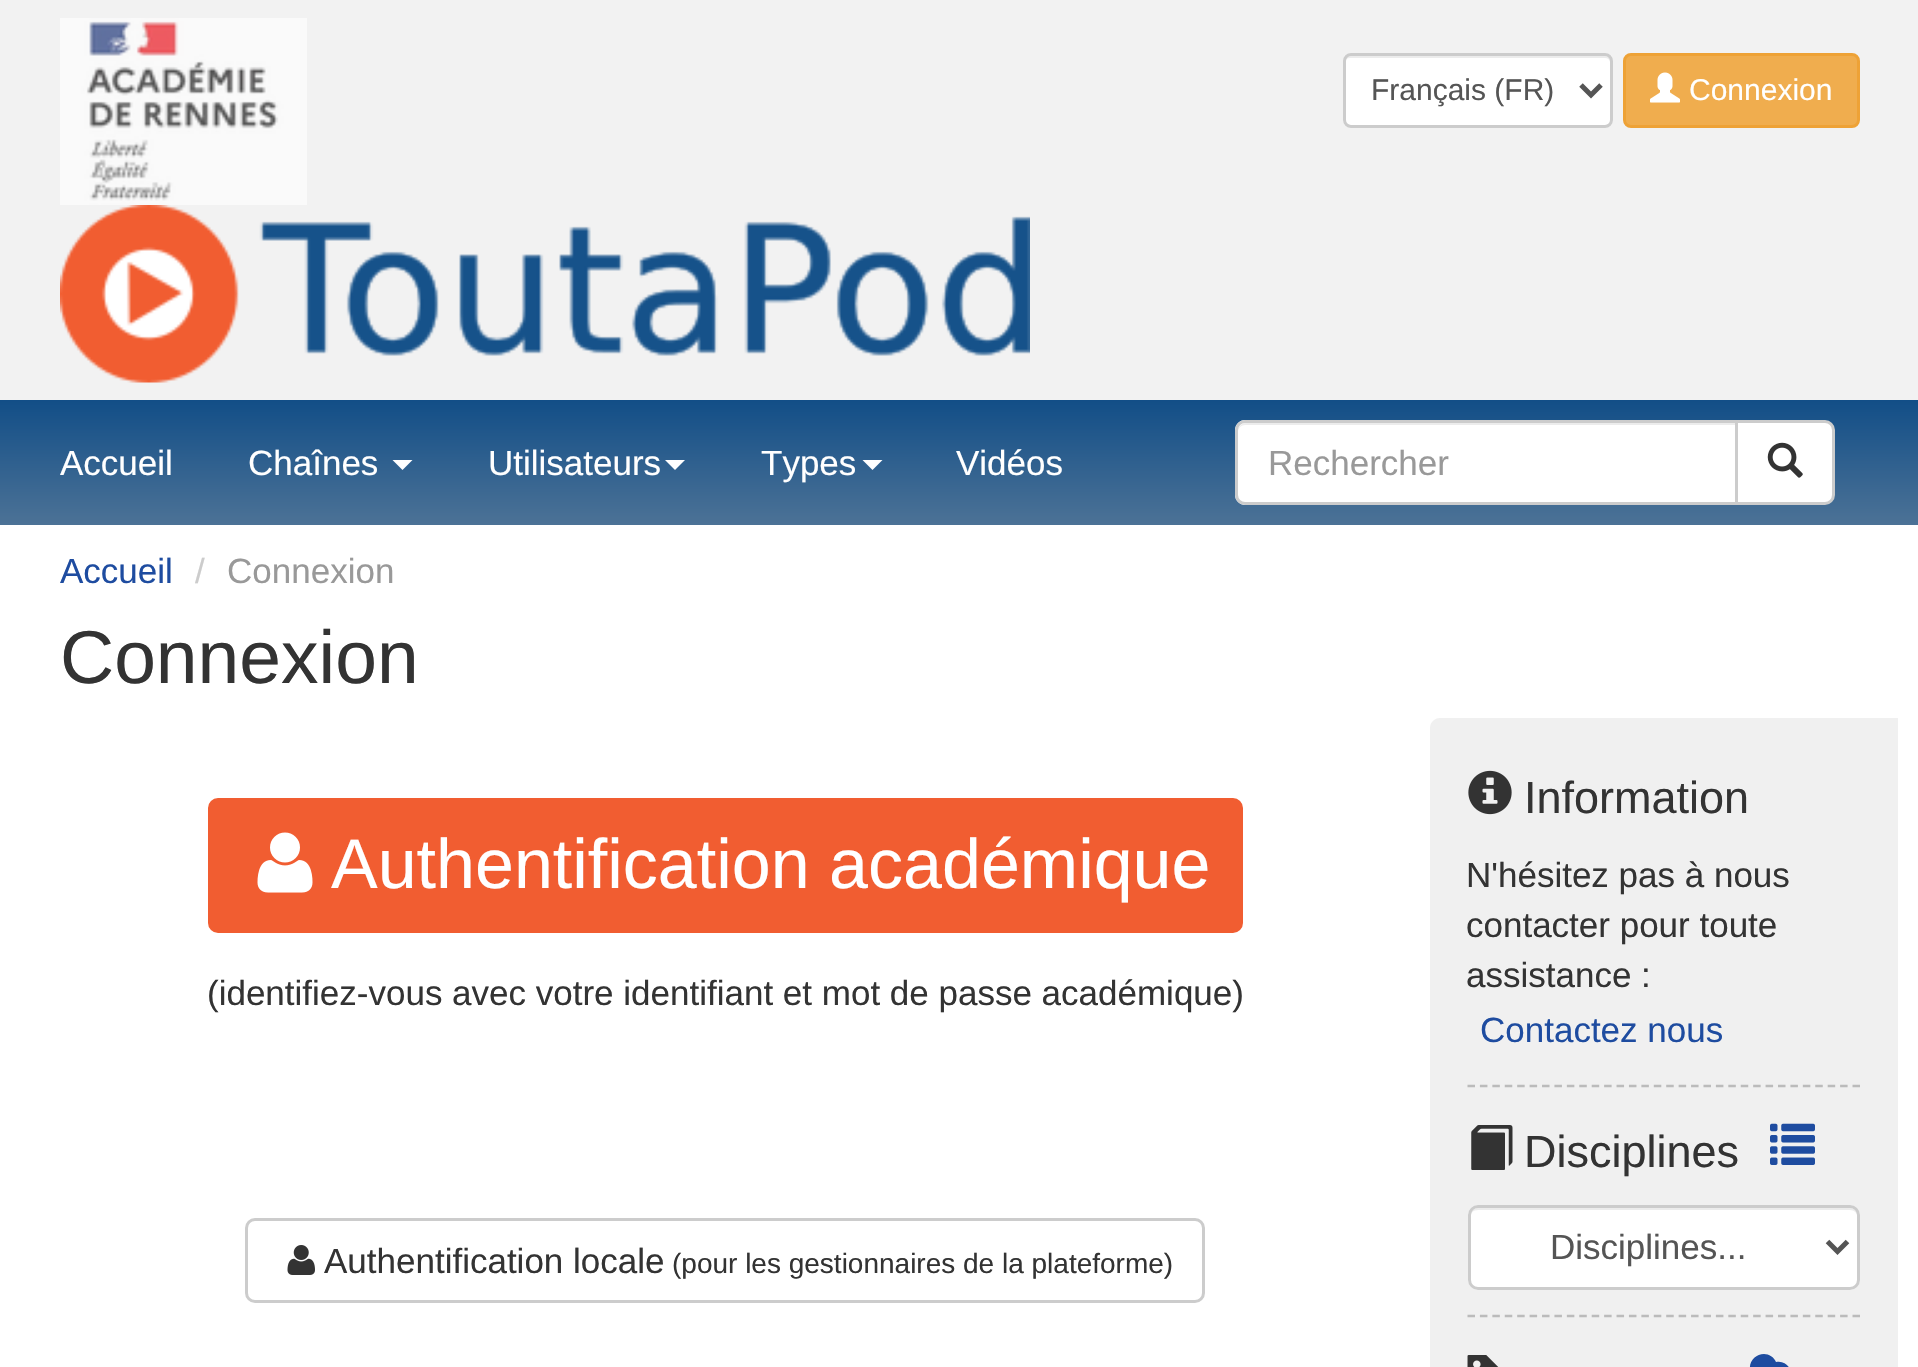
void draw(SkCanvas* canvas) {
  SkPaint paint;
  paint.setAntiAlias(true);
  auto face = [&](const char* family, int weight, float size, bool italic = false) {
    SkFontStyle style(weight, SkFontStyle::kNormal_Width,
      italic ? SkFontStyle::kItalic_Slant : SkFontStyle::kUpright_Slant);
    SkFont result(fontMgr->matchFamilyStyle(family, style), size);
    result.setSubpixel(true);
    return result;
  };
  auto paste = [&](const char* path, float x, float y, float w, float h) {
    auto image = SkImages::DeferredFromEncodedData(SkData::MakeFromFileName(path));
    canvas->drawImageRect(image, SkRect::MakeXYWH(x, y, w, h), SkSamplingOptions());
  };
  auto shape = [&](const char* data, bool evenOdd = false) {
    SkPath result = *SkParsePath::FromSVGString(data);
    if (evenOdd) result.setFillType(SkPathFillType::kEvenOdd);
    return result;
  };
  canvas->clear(0xffffffff);
  paint.setColor(0xfff2f2f2);
  canvas->drawRect(SkRect::MakeXYWH(0, 0, 1918, 400), paint);
  paste("img/1.png", 60, 18, 247, 187);
  paste("img/2.png", 60, 205, 970, 178);
  paint.setColor(0xffffffff);
  canvas->drawRoundRect(SkRect::MakeXYWH(1343, 53, 270, 75), 8, 8, paint);
  paint.setColor(0xffececec);
  canvas->drawPath(shape("M1350 58H1605C1608 58 1610 60 1610 62V60C1610 57 1608 55 1605 55H1350C1347 55 1345 57 1345 60V62C1345 60 1347 58 1350 58Z"), paint);
  paint.setStroke(true);
  paint.setStrokeWidth(3);
  paint.setColor(0xffcccccc);
  canvas->drawRoundRect(SkRect::MakeXYWH(1344.5f, 54.5f, 267, 72), 6.5f, 6.5f, paint);
  paint.setStrokeWidth(5);
  paint.setColor(0xff555555);
  canvas->drawPath(shape("M1581 85L1591 95L1601 85"), paint);
  paint.setStroke(false);
  paint.setColor(0xfff0ad4e);
  canvas->drawRoundRect(SkRect::MakeXYWH(1624.5f, 54.5f, 234, 72), 6.5f, 6.5f, paint);
  paint.setStroke(true);
  paint.setStrokeWidth(3);
  paint.setColor(0xffeea236);
  canvas->drawRoundRect(SkRect::MakeXYWH(1624.5f, 54.5f, 234, 72), 6.5f, 6.5f, paint);
  paste("img/3.png", 1650, 72, 30, 31);
  paint.setStroke(false);
  {
    const SkColor colors[] = {0xff124e87, 0xff4c7296};
    const float stops[] = {0, 1};
    const SkPoint ends[] = {{960, 400}, {960, 525}};
    paint.setShader(SkGradientShader::MakeLinear(ends, colors, stops, 2, SkTileMode::kClamp));
    paint.setAlpha(255);
  }
  canvas->drawRect(SkRect::MakeXYWH(0, 400, 1918, 125), paint);
  paint.setShader(nullptr);
  paint.setColor(0xffffffff);
  canvas->drawPath(shape("M392.5 460H412.5L402.5 470Z"), paint);
  canvas->drawPath(shape("M665 460H685L675 470Z"), paint);
  canvas->drawPath(shape("M862.5 460H882.5L872.5 470Z"), paint);
  canvas->drawPath(shape("M1245 420H1738V505H1245C1239.5 505 1235 500.5 1235 495V430C1235 424.5 1239.5 420 1245 420Z"), paint);
  paint.setColor(0xffececec);
  canvas->drawPath(shape("M1245 425H1735V423H1246C1242 423 1238 427 1238 431V432C1238 428 1241 425 1245 425Z"), paint);
  paint.setStroke(true);
  paint.setColor(0xffcccccc);
  canvas->drawPath(shape("M1245 421.5H1736.5V503.5H1245C1240.5 503.5 1236.5 499.5 1236.5 495V430C1236.5 425.5 1240.5 421.5 1245 421.5Z"), paint);
  paint.setStroke(false);
  paint.setColor(0xffffffff);
  canvas->drawPath(shape("M1736.5 421.5H1825C1829.5 421.5 1833.5 425.5 1833.5 430V495C1833.5 499.5 1829.5 503.5 1825 503.5H1736.5Z"), paint);
  paint.setStroke(true);
  paint.setColor(0xffcccccc);
  canvas->drawPath(shape("M1736.5 421.5H1825C1829.5 421.5 1833.5 425.5 1833.5 430V495C1833.5 499.5 1829.5 503.5 1825 503.5H1736.5Z"), paint);
  paste("img/4.png", 1767, 442, 36, 36);
  paint.setStroke(false);
  paint.setColor(0xfff15d31);
  canvas->drawRoundRect(SkRect::MakeXYWH(209.5f, 799.5f, 1032, 132), 8.5f, 8.5f, paint);
  paint.setStroke(true);
  canvas->drawRoundRect(SkRect::MakeXYWH(209.5f, 799.5f, 1032, 132), 8.5f, 8.5f, paint);
  paste("img/5.png", 257, 832, 56, 61);
  paint.setColor(0xffcccccc);
  canvas->drawRoundRect(SkRect::MakeXYWH(246.5f, 1219.5f, 957, 82), 8.5f, 8.5f, paint);
  paste("img/6.png", 287, 1245, 28, 30);
  paint.setStroke(false);
  paint.setColor(0xfff0f0f0);
  canvas->drawPath(shape("M1440 718H1898V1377H1440C1434.5 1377 1430 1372.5 1430 1367V728C1430 722.5 1434.5 718 1440 718Z"), paint);
  paint.setStroke(true);
  paint.setStrokeWidth(2.5f);
  paint.setColor(0xffbbbbbb);
  paint.setPathEffect(SkDashPathEffect::Make({{7.5f, 4.92f}}, 0));
  canvas->drawPath(shape("M1467.5 1086H1860"), paint);
  paint.setPathEffect(nullptr);
  paste("img/7.png", 1468, 770, 44, 45);
  paint.setPathEffect(SkDashPathEffect::Make({{7.5f, 4.92f}}, 0));
  canvas->drawPath(shape("M1467.5 1316H1860"), paint);
  paint.setPathEffect(nullptr);
  paste("img/8.png", 1471, 1125, 42, 45);
  paste("img/9.png", 1770, 1123, 45, 42);
  paint.setStroke(false);
  paint.setColor(0xffffffff);
  canvas->drawRoundRect(SkRect::MakeXYWH(1468, 1205, 392, 85), 10, 10, paint);
  paint.setColor(0xffececec);
  canvas->drawPath(shape("M1478 1210H1850C1854 1210 1858 1213 1858 1218V1216C1858 1212 1854 1208 1850 1208H1478C1474 1208 1470 1212 1470 1216V1218C1470 1213 1473 1210 1478 1210Z"), paint);
  paint.setStroke(true);
  paint.setStrokeWidth(3);
  paint.setColor(0xffcccccc);
  canvas->drawRoundRect(SkRect::MakeXYWH(1469.5f, 1206.5f, 389, 82), 8.5f, 8.5f, paint);
  paint.setStrokeWidth(5);
  paint.setColor(0xff555555);
  canvas->drawPath(shape("M1827.5 1241.5L1837.5 1251.5L1847.5 1241.5"), paint);
  paste("img/10.png", 1467, 1355, 32, 12);
  paint.setStroke(false);
  paint.setColor(0xff1e4ca0);
  canvas->drawPath(shape("M1764 1354C1769 1354 1774 1357 1776 1362C1785 1360 1793 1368 1790 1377C1786 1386 1774 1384 1766 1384C1760 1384 1742 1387 1745 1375C1745 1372 1747 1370 1750 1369C1749 1361 1756 1354 1764 1354Z"), paint);
  auto f0 = face("Liberation Sans", 400, 30);
  paint.setColor(0xff555555);
  canvas->drawString("Français (FR)", 1371, 100, f0, paint);
  paint.setColor(0xffffffff);
  canvas->drawString("Connexion", 1689, 100, f0, paint);
  auto f1 = face("Liberation Sans", 400, 35);
  {
    const struct { const char* s; float x, y; } items[] = {
      {"Accueil", 60, 475},
      {"Chaînes", 248, 475},
      {"Utilisateurs", 488, 475},
      {"Types", 761, 475},
      {"Vidéos", 956, 475},
    };
    for (auto [s, x, y] : items) {
      canvas->drawString(s, x, y, f1, paint);
    }
  }
  paint.setColor(0xff999999);
  canvas->drawString("Rechercher", 1268, 475, f1, paint);
  paint.setColor(0xff1e4ca0);
  canvas->drawString("Accueil", 60, 583, f1, paint);
  paint.setColor(0xffcccccc);
  canvas->drawString("/", 195, 583, f1, paint);
  paint.setColor(0xff999999);
  canvas->drawString("Connexion", 227, 583, f1, paint);
  auto f2 = face("Liberation Sans", 400, 75);
  paint.setColor(0xff333333);
  canvas->drawString("Connexion", 60, 683, f2, paint);
  auto f3 = face("Liberation Sans", 400, 70);
  paint.setColor(0xffffffff);
  canvas->drawString("Authentification académique", 331, 888, f3, paint);
  paint.setColor(0xff333333);
  canvas->drawString("(identifiez-vous avec votre identifiant et mot de passe académique)", 207, 1005, f1, paint);
  canvas->drawString("Authentification locale", 324, 1273, f1, paint);
  auto f4 = face("Liberation Sans", 400, 28);
  canvas->drawString("(pour les gestionnaires de la plateforme)", 672, 1273, f4, paint);
  auto f5 = face("Liberation Sans", 400, 45);
  canvas->drawString("Information", 1524, 813, f5, paint);
  {
    const struct { const char* s; float x, y; } items[] = {
      {"N'hésitez pas à nous", 1466, 887},
      {"contacter pour toute", 1466, 937},
      {"assistance :", 1466, 987},
    };
    for (auto [s, x, y] : items) {
      canvas->drawString(s, x, y, f1, paint);
    }
  }
  paint.setColor(0xff1e4ca0);
  canvas->drawString("Contactez nous", 1480, 1042, f1, paint);
  paint.setColor(0xff333333);
  canvas->drawString("Disciplines", 1524, 1167, f5, paint);
  paint.setColor(0xff555555);
  canvas->drawString("Disciplines...", 1550, 1259, f1, paint);
}
